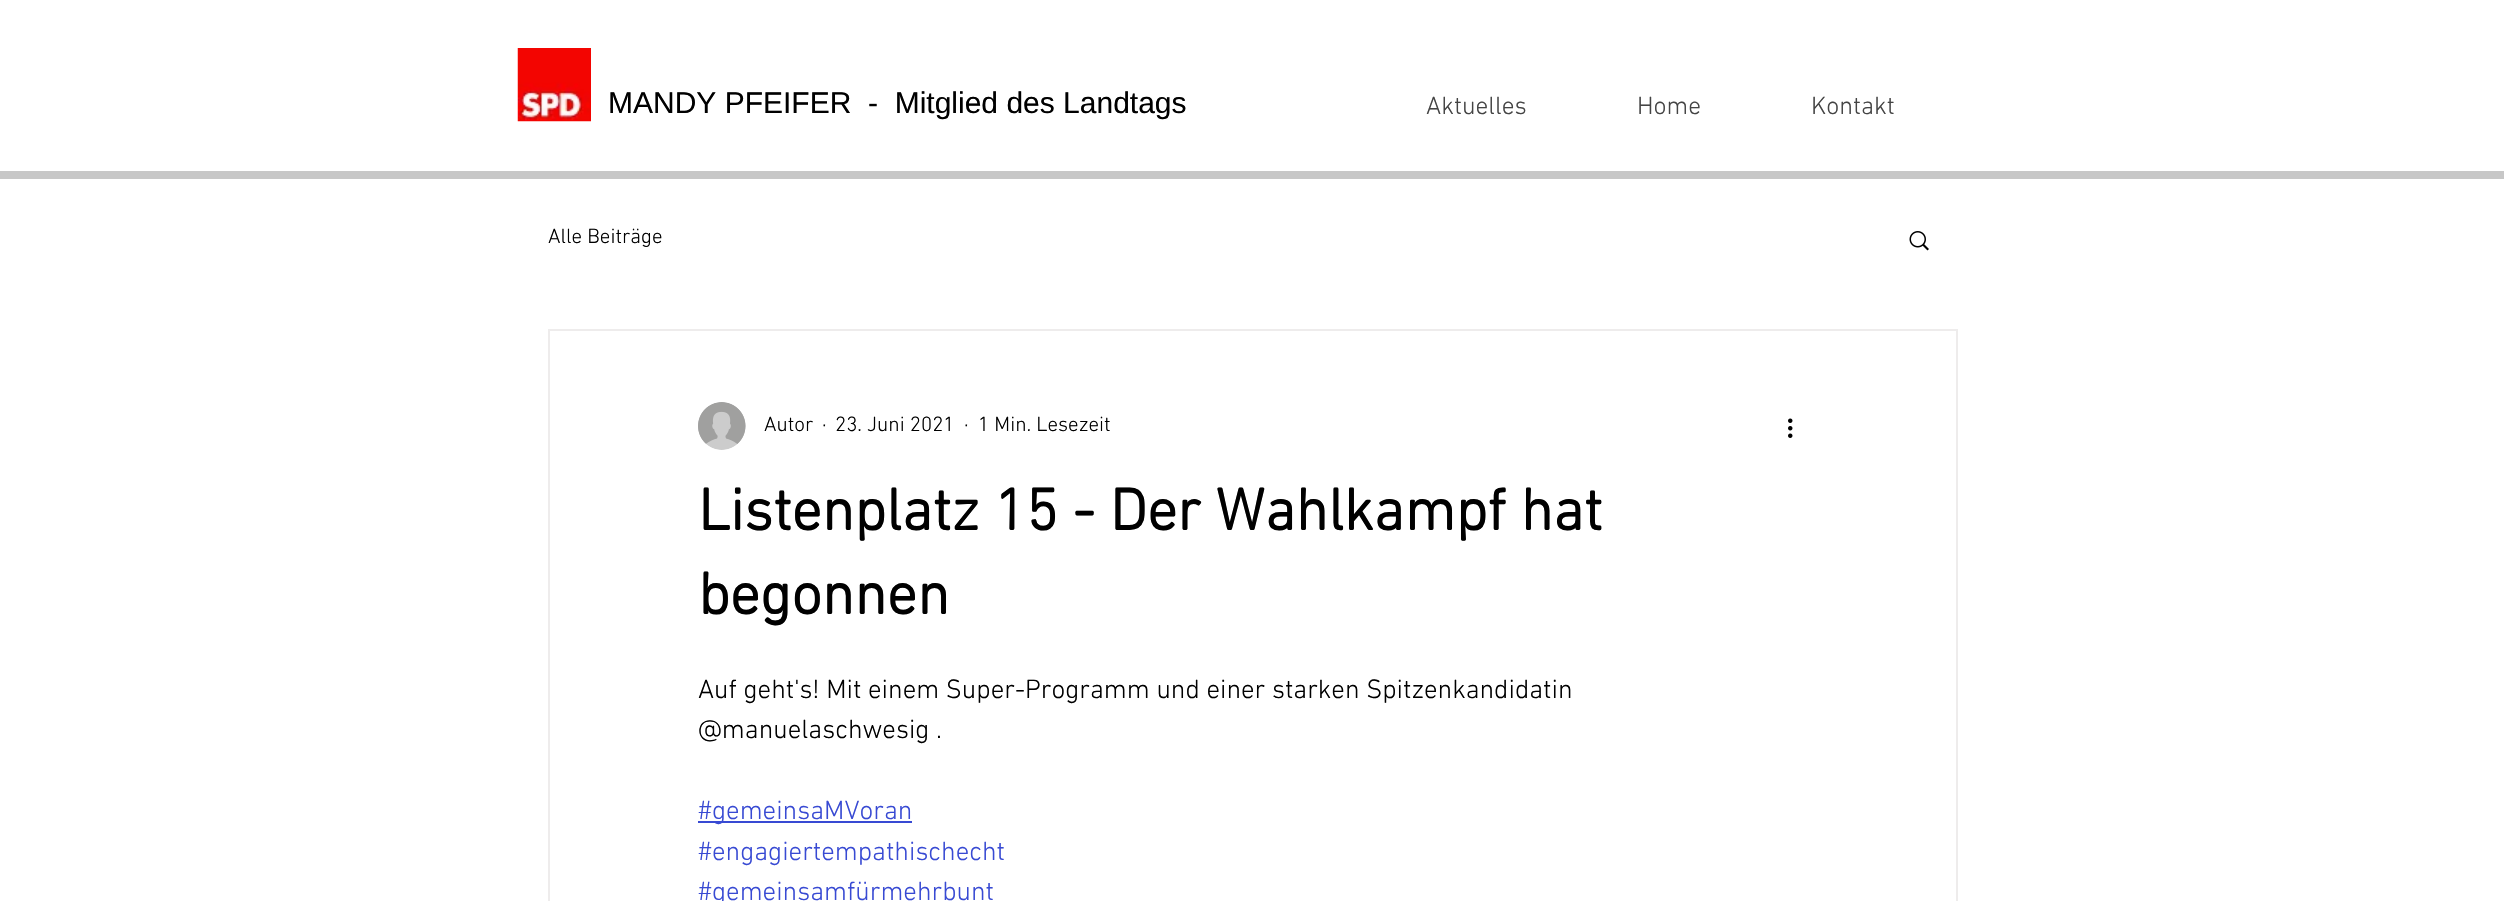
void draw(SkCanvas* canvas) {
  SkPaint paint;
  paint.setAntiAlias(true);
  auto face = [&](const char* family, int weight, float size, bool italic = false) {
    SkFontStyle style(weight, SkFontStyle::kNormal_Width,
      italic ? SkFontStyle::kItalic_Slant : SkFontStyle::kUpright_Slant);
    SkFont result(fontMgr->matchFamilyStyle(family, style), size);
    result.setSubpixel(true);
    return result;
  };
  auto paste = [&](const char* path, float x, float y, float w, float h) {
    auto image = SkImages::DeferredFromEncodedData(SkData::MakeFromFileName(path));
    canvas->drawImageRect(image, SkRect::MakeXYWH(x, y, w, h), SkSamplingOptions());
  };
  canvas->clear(0xffffffff);
  paste("img/1.png", 517, 48, 74, 74);
  paint.setColor(0xffc7c7c7);
  canvas->drawRect(SkRect::MakeXYWH(0, 171, 2504, 8), paint);
  paste("img/2.png", 1909, 231, 20, 20);
  paint.setStroke(true);
  paint.setStrokeWidth(2);
  paint.setColor(0xffeeecec);
  canvas->drawRect(SkRect::MakeXYWH(549, 330, 1408, 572), paint);
  paste("img/3.png", 698, 402, 48, 48);
  paste("img/4.png", 1788, 418, 5, 20);
  paint.setStroke(false);
  paint.setColor(0xff384ad3);
  canvas->drawRect(SkRect::MakeXYWH(698, 821, 214, 2), paint);
  auto f0 = face("Liberation Sans", 400, 30);
  paint.setColor(0xff000000);
  canvas->drawString("MANDY PFEIFER  -  Mitglied des Landtags", 608, 113, f0, paint);
  auto f1 = face("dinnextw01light", 300, 25.5f);
  paint.setColor(0xff444444);
  {
    const struct { const char* s; float x, y; } items[] = {
      {"Aktuelles", 1426, 114},
      {"Home", 1637, 114},
      {"Kontakt", 1811, 114},
    };
    for (auto [s, x, y] : items) {
      canvas->drawString(s, x, y, f1, paint);
    }
  }
  auto f2 = face("dinnextw01light", 300, 21);
  paint.setColor(0xff000000);
  {
    const struct { const char* s; float x, y; } items[] = {
      {"Alle Beiträge", 548, 243},
      {"Autor", 764, 431},
      {"·", 822, 431},
      {"23. Juni 2021", 835, 431},
      {"·", 964, 431},
      {"1 Min. Lesezeit", 978, 431},
    };
    for (auto [s, x, y] : items) {
      canvas->drawString(s, x, y, f2, paint);
    }
  }
  auto f3 = face("dinnextw01light", 700, 60);
  canvas->drawString("Listenplatz 15 - Der Wahlkampf hat", 698, 530, f3, paint);
  canvas->drawString("begonnen", 698, 614, f3, paint);
  auto f4 = face("dinnextw01light", 300, 27);
  canvas->drawString("Auf geht's! Mit einem Super-Programm und einer starken Spitzenkandidatin", 698, 698, f4, paint);
  canvas->drawString("@manuelaschwesig .", 698, 738, f4, paint);
  paint.setColor(0xff384ad3);
  {
    const struct { const char* s; float x, y; } items[] = {
      {"#gemeinsaMVoran", 698, 819},
      {"#engagiertempathischecht", 698, 860},
      {"#gemeinsamfürmehrbunt", 698, 900},
    };
    for (auto [s, x, y] : items) {
      canvas->drawString(s, x, y, f4, paint);
    }
  }
}
